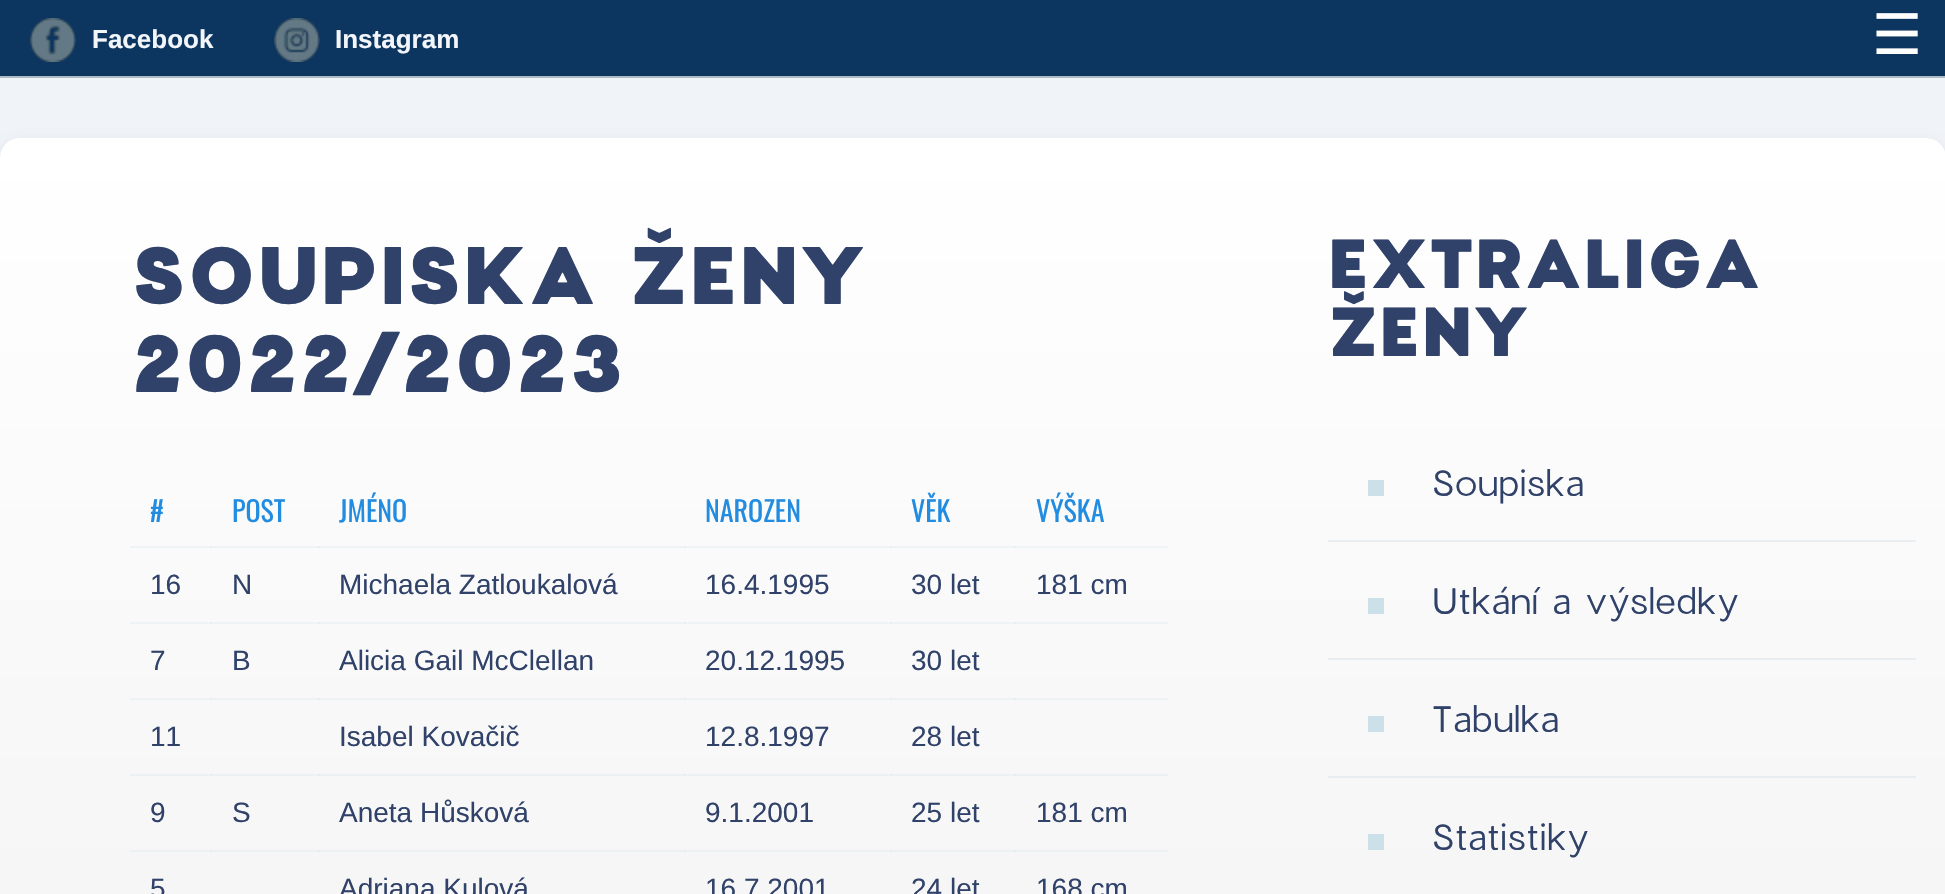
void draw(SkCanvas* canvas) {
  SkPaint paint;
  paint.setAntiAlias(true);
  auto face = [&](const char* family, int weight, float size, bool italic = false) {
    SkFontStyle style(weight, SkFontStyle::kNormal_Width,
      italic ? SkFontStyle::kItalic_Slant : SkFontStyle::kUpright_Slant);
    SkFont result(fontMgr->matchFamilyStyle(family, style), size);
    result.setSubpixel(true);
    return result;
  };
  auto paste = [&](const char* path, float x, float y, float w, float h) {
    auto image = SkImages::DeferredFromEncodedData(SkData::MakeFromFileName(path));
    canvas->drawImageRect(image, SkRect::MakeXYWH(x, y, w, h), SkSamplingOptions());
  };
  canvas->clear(0xfff0f4f8);
  paint.setColor(0xff0c355f);
  canvas->drawRect(SkRect::MakeXYWH(0, 0, 1945, 76), paint);
  paint.setColor(0xffabbcc5);
  canvas->drawRect(SkRect::MakeXYWH(0, 76, 1945, 2), paint);
  paste("img/1.png", 30, 18, 46, 44);
  paste("img/2.png", 274, 18, 46, 44);
  paint.setColor(0x14000000);
  paint.setMaskFilter(SkMaskFilter::MakeBlur(kNormal_SkBlurStyle, 6));
  canvas->drawRoundRect(SkRect::MakeXYWH(0, 142, 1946, 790), 20, 20, paint);
  paint.setMaskFilter(nullptr);
  {
    const SkColor colors[] = {0xffd7d7d7, 0xffffffff};
    const float stops[] = {0, 1};
    const SkPoint ends[] = {{973, 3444}, {973, 138}};
    paint.setShader(SkGradientShader::MakeLinear(ends, colors, stops, 2, SkTileMode::kClamp));
    paint.setAlpha(255);
  }
  canvas->drawRoundRect(SkRect::MakeXYWH(0, 138, 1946, 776), 20, 20, paint);
  {
    const SkColor colors[] = {0xffd4d9dc, 0xfff2f7fa};
    const float stops[] = {0, 1};
    const SkPoint ends[] = {{973, 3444}, {973, 138}};
    paint.setShader(SkGradientShader::MakeLinear(ends, colors, stops, 2, SkTileMode::kClamp));
    paint.setAlpha(255);
  }
  canvas->drawRect(SkRect::MakeXYWH(130, 546, 82, 2), paint);
  canvas->drawRect(SkRect::MakeXYWH(210, 546, 110, 2), paint);
  {
    const SkColor colors[] = {0xffd2dbe0, 0xffe9f1f6};
    const float stops[] = {0, 1};
    const SkPoint ends[] = {{973, 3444}, {973, 138}};
    paint.setShader(SkGradientShader::MakeLinear(ends, colors, stops, 2, SkTileMode::kClamp));
    paint.setAlpha(255);
  }
  canvas->drawRect(SkRect::MakeXYWH(210, 546, 2, 2), paint);
  {
    const SkColor colors[] = {0xffd4d9dc, 0xfff2f7fa};
    const float stops[] = {0, 1};
    const SkPoint ends[] = {{973, 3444}, {973, 138}};
    paint.setShader(SkGradientShader::MakeLinear(ends, colors, stops, 2, SkTileMode::kClamp));
    paint.setAlpha(255);
  }
  canvas->drawRect(SkRect::MakeXYWH(318, 546, 368, 2), paint);
  {
    const SkColor colors[] = {0xffd2dbe0, 0xffe9f1f6};
    const float stops[] = {0, 1};
    const SkPoint ends[] = {{973, 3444}, {973, 138}};
    paint.setShader(SkGradientShader::MakeLinear(ends, colors, stops, 2, SkTileMode::kClamp));
    paint.setAlpha(255);
  }
  canvas->drawRect(SkRect::MakeXYWH(318, 546, 2, 2), paint);
  {
    const SkColor colors[] = {0xffd4d9dc, 0xfff2f7fa};
    const float stops[] = {0, 1};
    const SkPoint ends[] = {{973, 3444}, {973, 138}};
    paint.setShader(SkGradientShader::MakeLinear(ends, colors, stops, 2, SkTileMode::kClamp));
    paint.setAlpha(255);
  }
  canvas->drawRect(SkRect::MakeXYWH(684, 546, 208, 2), paint);
  {
    const SkColor colors[] = {0xffd2dbe0, 0xffe9f1f6};
    const float stops[] = {0, 1};
    const SkPoint ends[] = {{973, 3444}, {973, 138}};
    paint.setShader(SkGradientShader::MakeLinear(ends, colors, stops, 2, SkTileMode::kClamp));
    paint.setAlpha(255);
  }
  canvas->drawRect(SkRect::MakeXYWH(684, 546, 2, 2), paint);
  {
    const SkColor colors[] = {0xffd4d9dc, 0xfff2f7fa};
    const float stops[] = {0, 1};
    const SkPoint ends[] = {{973, 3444}, {973, 138}};
    paint.setShader(SkGradientShader::MakeLinear(ends, colors, stops, 2, SkTileMode::kClamp));
    paint.setAlpha(255);
  }
  canvas->drawRect(SkRect::MakeXYWH(890, 546, 126, 2), paint);
  {
    const SkColor colors[] = {0xffd2dbe0, 0xffe9f1f6};
    const float stops[] = {0, 1};
    const SkPoint ends[] = {{973, 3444}, {973, 138}};
    paint.setShader(SkGradientShader::MakeLinear(ends, colors, stops, 2, SkTileMode::kClamp));
    paint.setAlpha(255);
  }
  canvas->drawRect(SkRect::MakeXYWH(890, 546, 2, 2), paint);
  {
    const SkColor colors[] = {0xffd4d9dc, 0xfff2f7fa};
    const float stops[] = {0, 1};
    const SkPoint ends[] = {{973, 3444}, {973, 138}};
    paint.setShader(SkGradientShader::MakeLinear(ends, colors, stops, 2, SkTileMode::kClamp));
    paint.setAlpha(255);
  }
  canvas->drawRect(SkRect::MakeXYWH(130, 622, 82, 2), paint);
  canvas->drawRect(SkRect::MakeXYWH(210, 622, 110, 2), paint);
  {
    const SkColor colors[] = {0xffd2dbe0, 0xffe9f1f6};
    const float stops[] = {0, 1};
    const SkPoint ends[] = {{973, 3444}, {973, 138}};
    paint.setShader(SkGradientShader::MakeLinear(ends, colors, stops, 2, SkTileMode::kClamp));
    paint.setAlpha(255);
  }
  canvas->drawRect(SkRect::MakeXYWH(210, 622, 2, 2), paint);
  {
    const SkColor colors[] = {0xffd4d9dc, 0xfff2f7fa};
    const float stops[] = {0, 1};
    const SkPoint ends[] = {{973, 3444}, {973, 138}};
    paint.setShader(SkGradientShader::MakeLinear(ends, colors, stops, 2, SkTileMode::kClamp));
    paint.setAlpha(255);
  }
  canvas->drawRect(SkRect::MakeXYWH(318, 622, 368, 2), paint);
  {
    const SkColor colors[] = {0xffd2dbe0, 0xffe9f1f6};
    const float stops[] = {0, 1};
    const SkPoint ends[] = {{973, 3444}, {973, 138}};
    paint.setShader(SkGradientShader::MakeLinear(ends, colors, stops, 2, SkTileMode::kClamp));
    paint.setAlpha(255);
  }
  canvas->drawRect(SkRect::MakeXYWH(318, 622, 2, 2), paint);
  {
    const SkColor colors[] = {0xffd4d9dc, 0xfff2f7fa};
    const float stops[] = {0, 1};
    const SkPoint ends[] = {{973, 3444}, {973, 138}};
    paint.setShader(SkGradientShader::MakeLinear(ends, colors, stops, 2, SkTileMode::kClamp));
    paint.setAlpha(255);
  }
  canvas->drawRect(SkRect::MakeXYWH(684, 622, 208, 2), paint);
  {
    const SkColor colors[] = {0xffd2dbe0, 0xffe9f1f6};
    const float stops[] = {0, 1};
    const SkPoint ends[] = {{973, 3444}, {973, 138}};
    paint.setShader(SkGradientShader::MakeLinear(ends, colors, stops, 2, SkTileMode::kClamp));
    paint.setAlpha(255);
  }
  canvas->drawRect(SkRect::MakeXYWH(684, 622, 2, 2), paint);
  {
    const SkColor colors[] = {0xffd4d9dc, 0xfff2f7fa};
    const float stops[] = {0, 1};
    const SkPoint ends[] = {{973, 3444}, {973, 138}};
    paint.setShader(SkGradientShader::MakeLinear(ends, colors, stops, 2, SkTileMode::kClamp));
    paint.setAlpha(255);
  }
  canvas->drawRect(SkRect::MakeXYWH(890, 622, 126, 2), paint);
  {
    const SkColor colors[] = {0xffd2dbe0, 0xffe9f1f6};
    const float stops[] = {0, 1};
    const SkPoint ends[] = {{973, 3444}, {973, 138}};
    paint.setShader(SkGradientShader::MakeLinear(ends, colors, stops, 2, SkTileMode::kClamp));
    paint.setAlpha(255);
  }
  canvas->drawRect(SkRect::MakeXYWH(890, 622, 2, 2), paint);
  {
    const SkColor colors[] = {0xffd4d9dc, 0xfff2f7fa};
    const float stops[] = {0, 1};
    const SkPoint ends[] = {{973, 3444}, {973, 138}};
    paint.setShader(SkGradientShader::MakeLinear(ends, colors, stops, 2, SkTileMode::kClamp));
    paint.setAlpha(255);
  }
  canvas->drawRect(SkRect::MakeXYWH(130, 698, 82, 2), paint);
  canvas->drawRect(SkRect::MakeXYWH(210, 698, 110, 2), paint);
  {
    const SkColor colors[] = {0xffd2dbe0, 0xffe9f1f6};
    const float stops[] = {0, 1};
    const SkPoint ends[] = {{973, 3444}, {973, 138}};
    paint.setShader(SkGradientShader::MakeLinear(ends, colors, stops, 2, SkTileMode::kClamp));
    paint.setAlpha(255);
  }
  canvas->drawRect(SkRect::MakeXYWH(210, 698, 2, 2), paint);
  {
    const SkColor colors[] = {0xffd4d9dc, 0xfff2f7fa};
    const float stops[] = {0, 1};
    const SkPoint ends[] = {{973, 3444}, {973, 138}};
    paint.setShader(SkGradientShader::MakeLinear(ends, colors, stops, 2, SkTileMode::kClamp));
    paint.setAlpha(255);
  }
  canvas->drawRect(SkRect::MakeXYWH(318, 698, 368, 2), paint);
  {
    const SkColor colors[] = {0xffd2dbe0, 0xffe9f1f6};
    const float stops[] = {0, 1};
    const SkPoint ends[] = {{973, 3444}, {973, 138}};
    paint.setShader(SkGradientShader::MakeLinear(ends, colors, stops, 2, SkTileMode::kClamp));
    paint.setAlpha(255);
  }
  canvas->drawRect(SkRect::MakeXYWH(318, 698, 2, 2), paint);
  {
    const SkColor colors[] = {0xffd4d9dc, 0xfff2f7fa};
    const float stops[] = {0, 1};
    const SkPoint ends[] = {{973, 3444}, {973, 138}};
    paint.setShader(SkGradientShader::MakeLinear(ends, colors, stops, 2, SkTileMode::kClamp));
    paint.setAlpha(255);
  }
  canvas->drawRect(SkRect::MakeXYWH(684, 698, 208, 2), paint);
  {
    const SkColor colors[] = {0xffd2dbe0, 0xffe9f1f6};
    const float stops[] = {0, 1};
    const SkPoint ends[] = {{973, 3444}, {973, 138}};
    paint.setShader(SkGradientShader::MakeLinear(ends, colors, stops, 2, SkTileMode::kClamp));
    paint.setAlpha(255);
  }
  canvas->drawRect(SkRect::MakeXYWH(684, 698, 2, 2), paint);
  {
    const SkColor colors[] = {0xffd4d9dc, 0xfff2f7fa};
    const float stops[] = {0, 1};
    const SkPoint ends[] = {{973, 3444}, {973, 138}};
    paint.setShader(SkGradientShader::MakeLinear(ends, colors, stops, 2, SkTileMode::kClamp));
    paint.setAlpha(255);
  }
  canvas->drawRect(SkRect::MakeXYWH(890, 698, 126, 2), paint);
  {
    const SkColor colors[] = {0xffd2dbe0, 0xffe9f1f6};
    const float stops[] = {0, 1};
    const SkPoint ends[] = {{973, 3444}, {973, 138}};
    paint.setShader(SkGradientShader::MakeLinear(ends, colors, stops, 2, SkTileMode::kClamp));
    paint.setAlpha(255);
  }
  canvas->drawRect(SkRect::MakeXYWH(890, 698, 2, 2), paint);
  {
    const SkColor colors[] = {0xffd4d9dc, 0xfff2f7fa};
    const float stops[] = {0, 1};
    const SkPoint ends[] = {{973, 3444}, {973, 138}};
    paint.setShader(SkGradientShader::MakeLinear(ends, colors, stops, 2, SkTileMode::kClamp));
    paint.setAlpha(255);
  }
  canvas->drawRect(SkRect::MakeXYWH(130, 774, 82, 2), paint);
  canvas->drawRect(SkRect::MakeXYWH(210, 774, 110, 2), paint);
  {
    const SkColor colors[] = {0xffd2dbe0, 0xffe9f1f6};
    const float stops[] = {0, 1};
    const SkPoint ends[] = {{973, 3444}, {973, 138}};
    paint.setShader(SkGradientShader::MakeLinear(ends, colors, stops, 2, SkTileMode::kClamp));
    paint.setAlpha(255);
  }
  canvas->drawRect(SkRect::MakeXYWH(210, 774, 2, 2), paint);
  {
    const SkColor colors[] = {0xffd4d9dc, 0xfff2f7fa};
    const float stops[] = {0, 1};
    const SkPoint ends[] = {{973, 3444}, {973, 138}};
    paint.setShader(SkGradientShader::MakeLinear(ends, colors, stops, 2, SkTileMode::kClamp));
    paint.setAlpha(255);
  }
  canvas->drawRect(SkRect::MakeXYWH(318, 774, 368, 2), paint);
  {
    const SkColor colors[] = {0xffd2dbe0, 0xffe9f1f6};
    const float stops[] = {0, 1};
    const SkPoint ends[] = {{973, 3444}, {973, 138}};
    paint.setShader(SkGradientShader::MakeLinear(ends, colors, stops, 2, SkTileMode::kClamp));
    paint.setAlpha(255);
  }
  canvas->drawRect(SkRect::MakeXYWH(318, 774, 2, 2), paint);
  {
    const SkColor colors[] = {0xffd4d9dc, 0xfff2f7fa};
    const float stops[] = {0, 1};
    const SkPoint ends[] = {{973, 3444}, {973, 138}};
    paint.setShader(SkGradientShader::MakeLinear(ends, colors, stops, 2, SkTileMode::kClamp));
    paint.setAlpha(255);
  }
  canvas->drawRect(SkRect::MakeXYWH(684, 774, 208, 2), paint);
  {
    const SkColor colors[] = {0xffd2dbe0, 0xffe9f1f6};
    const float stops[] = {0, 1};
    const SkPoint ends[] = {{973, 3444}, {973, 138}};
    paint.setShader(SkGradientShader::MakeLinear(ends, colors, stops, 2, SkTileMode::kClamp));
    paint.setAlpha(255);
  }
  canvas->drawRect(SkRect::MakeXYWH(684, 774, 2, 2), paint);
  {
    const SkColor colors[] = {0xffd4d9dc, 0xfff2f7fa};
    const float stops[] = {0, 1};
    const SkPoint ends[] = {{973, 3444}, {973, 138}};
    paint.setShader(SkGradientShader::MakeLinear(ends, colors, stops, 2, SkTileMode::kClamp));
    paint.setAlpha(255);
  }
  canvas->drawRect(SkRect::MakeXYWH(890, 774, 126, 2), paint);
  {
    const SkColor colors[] = {0xffd2dbe0, 0xffe9f1f6};
    const float stops[] = {0, 1};
    const SkPoint ends[] = {{973, 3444}, {973, 138}};
    paint.setShader(SkGradientShader::MakeLinear(ends, colors, stops, 2, SkTileMode::kClamp));
    paint.setAlpha(255);
  }
  canvas->drawRect(SkRect::MakeXYWH(890, 774, 2, 2), paint);
  {
    const SkColor colors[] = {0xffd4d9dc, 0xfff2f7fa};
    const float stops[] = {0, 1};
    const SkPoint ends[] = {{973, 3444}, {973, 138}};
    paint.setShader(SkGradientShader::MakeLinear(ends, colors, stops, 2, SkTileMode::kClamp));
    paint.setAlpha(255);
  }
  canvas->drawRect(SkRect::MakeXYWH(130, 850, 82, 2), paint);
  canvas->drawRect(SkRect::MakeXYWH(210, 850, 110, 2), paint);
  {
    const SkColor colors[] = {0xffd2dbe0, 0xffe9f1f6};
    const float stops[] = {0, 1};
    const SkPoint ends[] = {{973, 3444}, {973, 138}};
    paint.setShader(SkGradientShader::MakeLinear(ends, colors, stops, 2, SkTileMode::kClamp));
    paint.setAlpha(255);
  }
  canvas->drawRect(SkRect::MakeXYWH(210, 850, 2, 2), paint);
  {
    const SkColor colors[] = {0xffd4d9dc, 0xfff2f7fa};
    const float stops[] = {0, 1};
    const SkPoint ends[] = {{973, 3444}, {973, 138}};
    paint.setShader(SkGradientShader::MakeLinear(ends, colors, stops, 2, SkTileMode::kClamp));
    paint.setAlpha(255);
  }
  canvas->drawRect(SkRect::MakeXYWH(318, 850, 368, 2), paint);
  {
    const SkColor colors[] = {0xffd2dbe0, 0xffe9f1f6};
    const float stops[] = {0, 1};
    const SkPoint ends[] = {{973, 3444}, {973, 138}};
    paint.setShader(SkGradientShader::MakeLinear(ends, colors, stops, 2, SkTileMode::kClamp));
    paint.setAlpha(255);
  }
  canvas->drawRect(SkRect::MakeXYWH(318, 850, 2, 2), paint);
  {
    const SkColor colors[] = {0xffd4d9dc, 0xfff2f7fa};
    const float stops[] = {0, 1};
    const SkPoint ends[] = {{973, 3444}, {973, 138}};
    paint.setShader(SkGradientShader::MakeLinear(ends, colors, stops, 2, SkTileMode::kClamp));
    paint.setAlpha(255);
  }
  canvas->drawRect(SkRect::MakeXYWH(684, 850, 208, 2), paint);
  {
    const SkColor colors[] = {0xffd2dbe0, 0xffe9f1f6};
    const float stops[] = {0, 1};
    const SkPoint ends[] = {{973, 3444}, {973, 138}};
    paint.setShader(SkGradientShader::MakeLinear(ends, colors, stops, 2, SkTileMode::kClamp));
    paint.setAlpha(255);
  }
  canvas->drawRect(SkRect::MakeXYWH(684, 850, 2, 2), paint);
  {
    const SkColor colors[] = {0xffd4d9dc, 0xfff2f7fa};
    const float stops[] = {0, 1};
    const SkPoint ends[] = {{973, 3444}, {973, 138}};
    paint.setShader(SkGradientShader::MakeLinear(ends, colors, stops, 2, SkTileMode::kClamp));
    paint.setAlpha(255);
  }
  canvas->drawRect(SkRect::MakeXYWH(890, 850, 126, 2), paint);
  {
    const SkColor colors[] = {0xffd2dbe0, 0xffe9f1f6};
    const float stops[] = {0, 1};
    const SkPoint ends[] = {{973, 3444}, {973, 138}};
    paint.setShader(SkGradientShader::MakeLinear(ends, colors, stops, 2, SkTileMode::kClamp));
    paint.setAlpha(255);
  }
  canvas->drawRect(SkRect::MakeXYWH(890, 850, 2, 2), paint);
  paint.setShader(nullptr);
  {
    const struct { float x, y, w, h; SkColor color; } items[] = {
      {1014, 546, 154, 2, 0xffeff4f6},
      {1014, 546, 2, 2, 0xffe6eff3},
      {1014, 622, 154, 2, 0xffeef3f5},
      {1014, 622, 2, 2, 0xffe6eef2},
      {1014, 698, 154, 2, 0xffedf2f5},
      {1014, 698, 2, 2, 0xffe5eef2},
      {1014, 774, 154, 2, 0xffecf1f4},
      {1014, 774, 2, 2, 0xffe4edf2},
      {1014, 850, 154, 2, 0xffecf1f3},
      {1014, 850, 2, 2, 0xffe4edf1},
      {1328, 540, 588, 2, 0xffe8eef1},
      {1368, 480, 16, 16, 0xffcce0ea},
      {1328, 658, 588, 2, 0xffe7edf0},
      {1368, 598, 16, 16, 0xffcce0ea},
      {1328, 776, 588, 2, 0xffe6ecef},
      {1368, 716, 16, 16, 0xffcce0ea},
      {1368, 834, 16, 16, 0xffcce0ea},
    };
    for (auto [x, y, w, h, color] : items) {
      paint.setColor(color);
      canvas->drawRect(SkRect::MakeXYWH(x, y, w, h), paint);
    }
  }
  auto f0 = face("Liberation Sans", 700, 26);
  paint.setColor(0xfff2f6fa);
  canvas->drawString("Facebook", 92, 48, f0, paint);
  canvas->drawString("Instagram", 335, 48, f0, paint);
  auto f1 = face("DejaVu Sans", 400, 56);
  paint.setColor(0xffffffff);
  canvas->drawString("☰", 1872, 54, f1, paint);
  auto f2 = face("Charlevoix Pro", 900, 80);
  paint.setColor(0xff304269);
  canvas->drawString("SOUPISKA ŽENY", 130, 304, f2, paint);
  canvas->drawString("2022/2023", 130, 392, f2, paint);
  auto f3 = face("Oswald", 400, 28);
  paint.setColor(0xff228ce0);
  {
    const struct { const char* s; float x, y; } items[] = {
      {"#", 150, 522},
      {"POST", 232, 522},
      {"JMÉNO", 339, 522},
      {"NAROZEN", 705, 522},
      {"VĚK", 911, 522},
      {"VÝŠKA", 1036, 522},
    };
    for (auto [s, x, y] : items) {
      canvas->drawString(s, x, y, f3, paint);
    }
  }
  auto f4 = face("Liberation Sans", 400, 28);
  paint.setColor(0xff304269);
  {
    const struct { const char* s; float x, y; } items[] = {
      {"16", 150, 594},
      {"N", 232, 594},
      {"Michaela Zatloukalová", 339, 594},
      {"16.4.1995", 705, 594},
      {"30 let", 911, 594},
      {"181 cm", 1036, 594},
      {"7", 150, 670},
      {"B", 232, 670},
      {"Alicia Gail McClellan", 339, 670},
      {"20.12.1995", 705, 670},
      {"30 let", 911, 670},
      {"11", 150, 746},
      {"Isabel Kovačič", 339, 746},
      {"12.8.1997", 705, 746},
      {"28 let", 911, 746},
      {"9", 150, 822},
      {"S", 232, 822},
      {"Aneta Hůsková", 339, 822},
      {"9.1.2001", 705, 822},
      {"25 let", 911, 822},
      {"181 cm", 1036, 822},
      {"5", 150, 898},
      {"Adriana Kulová", 339, 898},
      {"16.7.2001", 705, 898},
      {"24 let", 911, 898},
      {"168 cm", 1036, 898},
    };
    for (auto [s, x, y] : items) {
      canvas->drawString(s, x, y, f4, paint);
    }
  }
  auto f5 = face("Charlevoix Pro", 900, 68);
  canvas->drawString("EXTRALIGA", 1327, 288, f5, paint);
  canvas->drawString("ŽENY", 1327, 356, f5, paint);
  auto f6 = face("Charlevoix Pro", 400, 36);
  {
    const struct { const char* s; float x, y; } items[] = {
      {"Soupiska", 1431, 496},
      {"Utkání a výsledky", 1431, 614},
      {"Tabulka", 1431, 732},
      {"Statistiky", 1431, 850},
    };
    for (auto [s, x, y] : items) {
      canvas->drawString(s, x, y, f6, paint);
    }
  }
}
